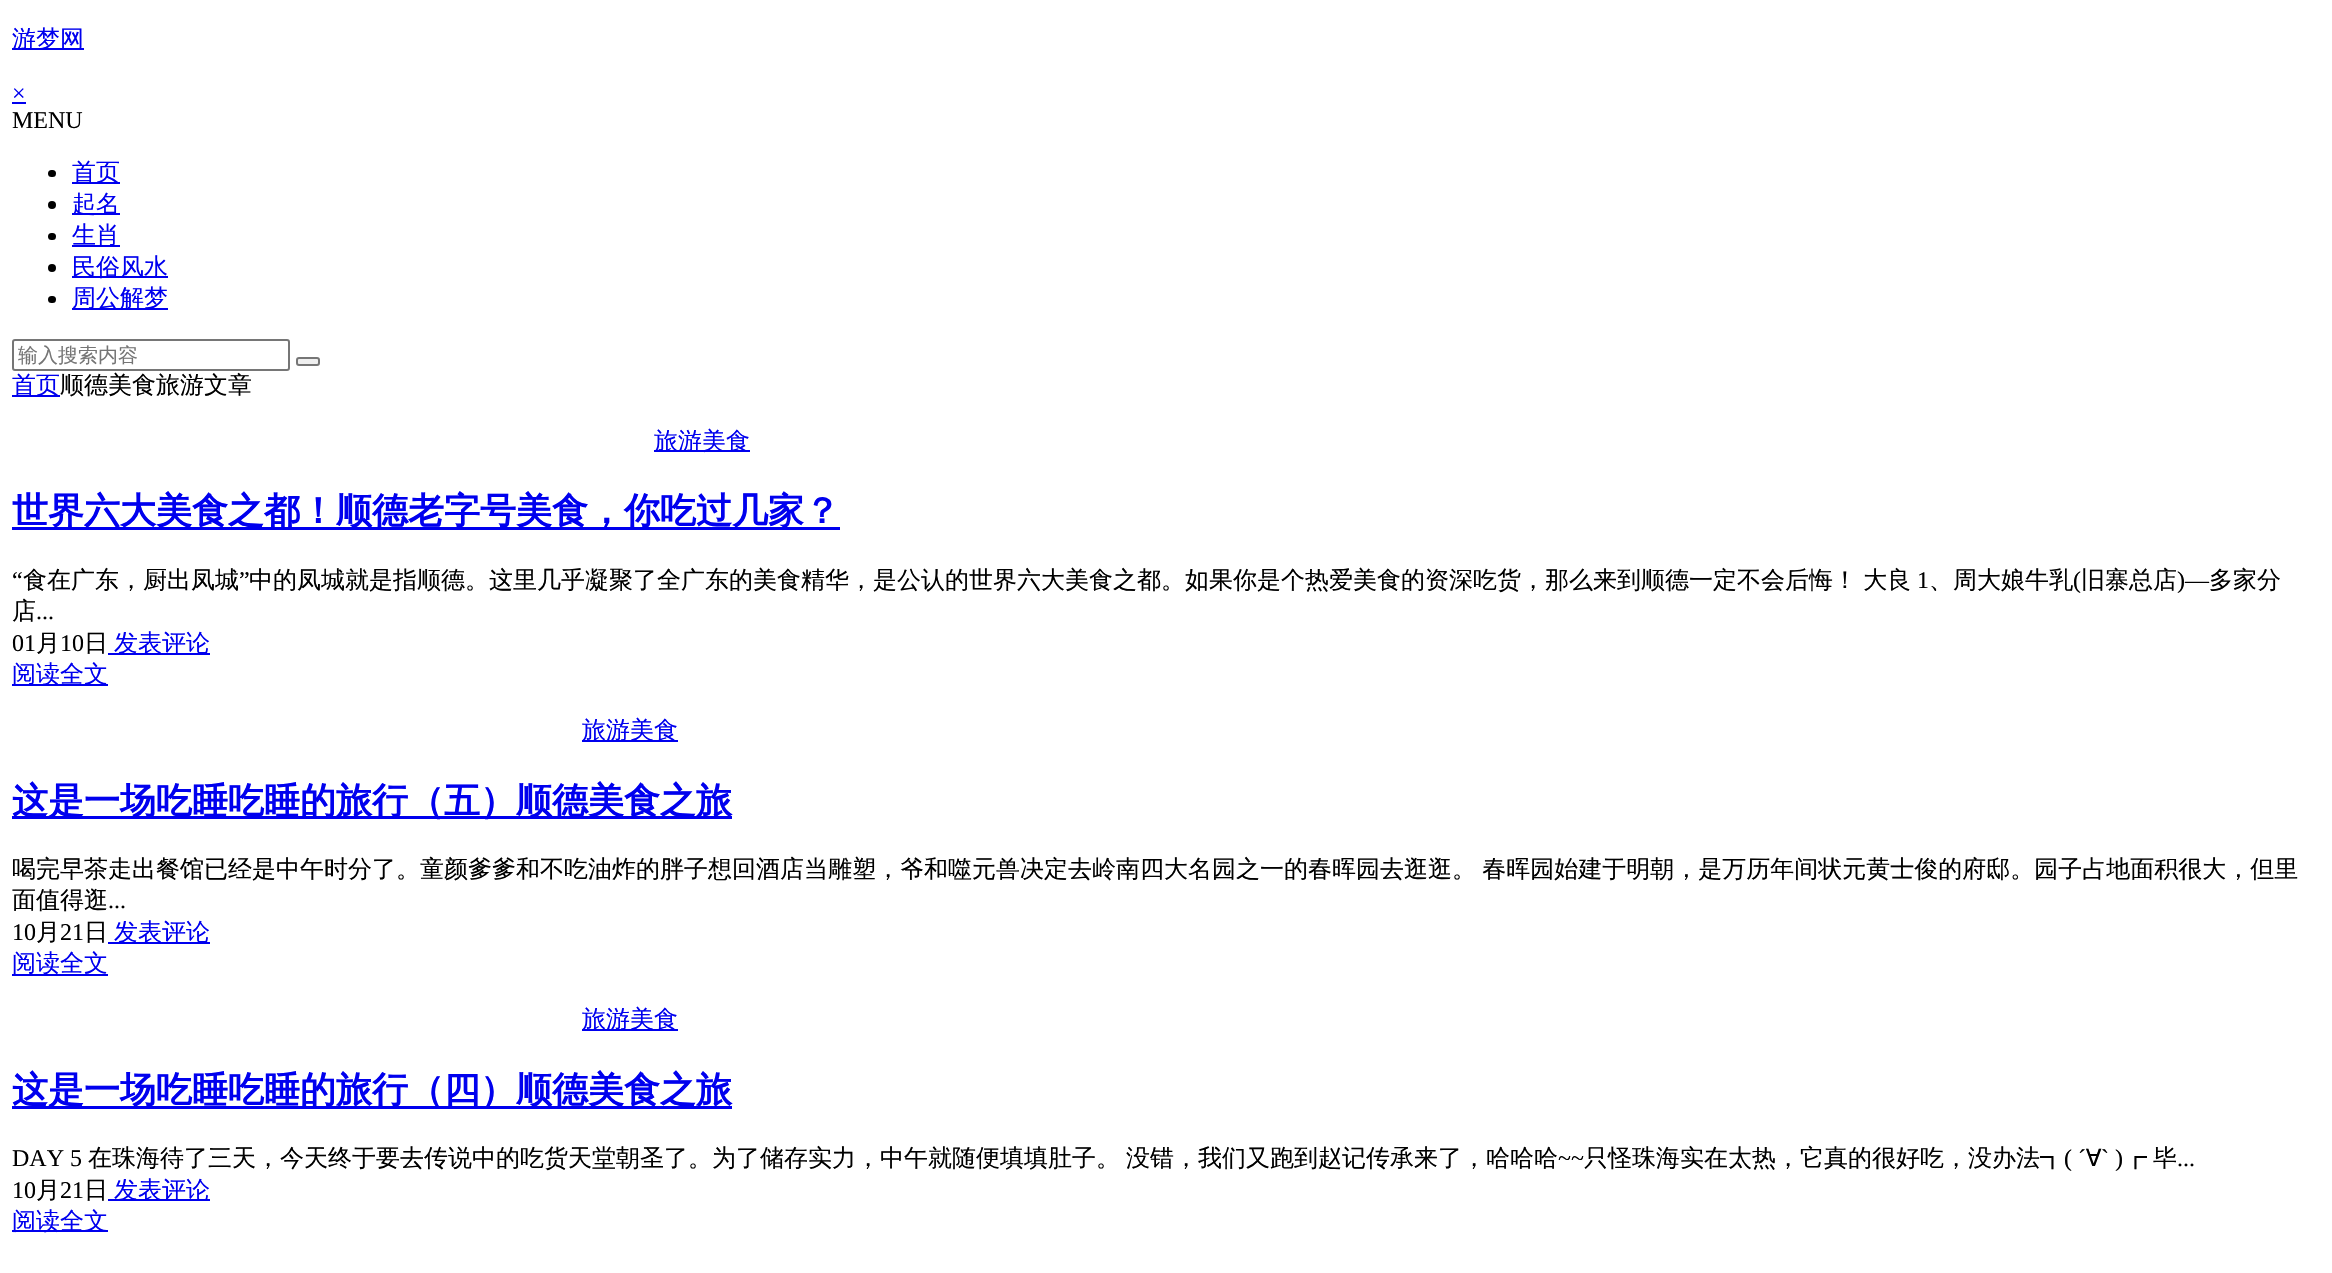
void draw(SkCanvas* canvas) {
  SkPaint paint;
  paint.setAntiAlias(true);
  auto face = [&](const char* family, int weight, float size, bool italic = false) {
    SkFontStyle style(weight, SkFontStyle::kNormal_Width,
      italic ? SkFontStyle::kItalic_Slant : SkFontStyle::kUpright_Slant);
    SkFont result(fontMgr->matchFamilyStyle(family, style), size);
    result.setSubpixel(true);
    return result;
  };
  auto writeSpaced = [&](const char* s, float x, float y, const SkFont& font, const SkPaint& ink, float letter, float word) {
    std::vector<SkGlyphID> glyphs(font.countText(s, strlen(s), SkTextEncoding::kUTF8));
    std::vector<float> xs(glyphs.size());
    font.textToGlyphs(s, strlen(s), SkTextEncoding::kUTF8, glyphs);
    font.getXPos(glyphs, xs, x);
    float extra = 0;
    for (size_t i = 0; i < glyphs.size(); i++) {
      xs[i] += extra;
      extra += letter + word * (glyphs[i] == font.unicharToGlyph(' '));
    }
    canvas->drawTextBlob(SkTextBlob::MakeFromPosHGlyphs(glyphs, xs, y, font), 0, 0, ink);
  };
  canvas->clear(0xffffffff);
  paint.setColor(0xff0000ee);
  canvas->drawRect(SkRect::MakeXYWH(12, 48, 72, 2), paint);
  canvas->drawRect(SkRect::MakeXYWH(12, 102, 14, 2), paint);
  paint.setColor(0xff000000);
  canvas->drawRoundRect(SkRect::MakeXYWH(48, 170, 8, 7), 3.5f, 3.5f, paint);
  paint.setColor(0xff0000ee);
  canvas->drawRect(SkRect::MakeXYWH(72, 182, 48, 2), paint);
  paint.setColor(0xff000000);
  canvas->drawCircle(52, 205, 4, paint);
  paint.setColor(0xff0000ee);
  canvas->drawRect(SkRect::MakeXYWH(72, 213, 48, 2), paint);
  paint.setColor(0xff000000);
  canvas->drawRoundRect(SkRect::MakeXYWH(48, 233, 8, 7), 3.5f, 3.5f, paint);
  paint.setColor(0xff0000ee);
  canvas->drawRect(SkRect::MakeXYWH(72, 245, 48, 2), paint);
  paint.setColor(0xff000000);
  canvas->drawCircle(52, 268, 4, paint);
  paint.setColor(0xff0000ee);
  canvas->drawRect(SkRect::MakeXYWH(72, 276, 96, 2), paint);
  paint.setColor(0xff000000);
  canvas->drawRoundRect(SkRect::MakeXYWH(48, 296, 8, 7), 3.5f, 3.5f, paint);
  paint.setColor(0xff0000ee);
  canvas->drawRect(SkRect::MakeXYWH(72, 308, 96, 2), paint);
  paint.setStroke(true);
  paint.setStrokeWidth(2);
  paint.setColor(0xff767676);
  canvas->drawRoundRect(SkRect::MakeXYWH(13, 340, 276, 30), 2, 2, paint);
  paint.setStroke(false);
  paint.setColor(0xffefefef);
  canvas->drawRoundRect(SkRect::MakeXYWH(297, 358, 22, 7), 2, 2, paint);
  paint.setStroke(true);
  paint.setColor(0xff767676);
  canvas->drawRoundRect(SkRect::MakeXYWH(297, 358, 22, 7), 2, 2, paint);
  paint.setStroke(false);
  {
    const struct { float x, y, w, h; SkColor color; } items[] = {
      {12, 395, 48, 2, 0xff0000ee},
      {654, 450, 96, 2, 0xff0000ee},
      {12, 527, 828, 3, 0xff0000ee},
      {108, 653, 102, 2, 0xff0000ee},
      {12, 684, 96, 2, 0xff0000ee},
      {582, 740, 96, 2, 0xff0000ee},
      {12, 816, 720, 3, 0xff0000ee},
      {108, 942, 102, 2, 0xff0000ee},
      {12, 974, 96, 2, 0xff0000ee},
      {582, 1029, 96, 2, 0xff0000ee},
      {12, 1106, 720, 3, 0xff0000ee},
      {108, 1199, 102, 2, 0xff0000ee},
      {12, 1230, 96, 2, 0xff0000ee},
    };
    for (auto [x, y, w, h, color] : items) {
      paint.setColor(color);
      canvas->drawRect(SkRect::MakeXYWH(x, y, w, h), paint);
    }
  }
  auto f0 = face("WenQuanYi Zen Hei", 500, 24);
  canvas->drawString("游梦网", 12, 47, f0, paint);
  auto f1 = face("Liberation Serif", 400, 24);
  canvas->drawString("×", 12, 101, f1, paint);
  paint.setColor(0xff000000);
  canvas->drawString("MENU", 12, 128, f1, paint);
  paint.setColor(0xff0000ee);
  {
    const struct { const char* s; float x, y; } items[] = {
      {"首页", 72, 180},
      {"起名", 72, 212},
      {"生肖", 72, 243},
      {"民俗风水", 72, 275},
      {"周公解梦", 72, 306},
    };
    for (auto [s, x, y] : items) {
      canvas->drawString(s, x, y, f0, paint);
    }
  }
  auto f2 = face("WenQuanYi Zen Hei", 500, 20);
  paint.setColor(0xff757575);
  canvas->drawString("输入搜索内容", 18, 362, f2, paint);
  paint.setColor(0xff0000ee);
  canvas->drawString("首页", 12, 393, f0, paint);
  paint.setColor(0xff000000);
  canvas->drawString("顺德美食旅游文章", 60, 393, f0, paint);
  paint.setColor(0xff0000ee);
  canvas->drawString("旅游美食", 654, 449, f0, paint);
  auto f3 = face("WenQuanYi Zen Hei", 700, 36);
  canvas->drawString("世界六大美食之都！顺德老字号美食，你吃过几家？", 12, 523, f3, paint);
  paint.setColor(0xff000000);
  canvas->drawString("“", 12, 588, f1, paint);
  canvas->drawString("食在广东，厨出凤城", 23, 588, f0, paint);
  canvas->drawString("”", 239, 588, f1, paint);
  writeSpaced("中的凤城就是指顺德。这里几乎凝聚了全广东的美食精华，是公认的世界六大美食之都。如果你是个热爱美食的资深吃货，那么来到顺德一定不会后悔！ 大良", 249, 588, f0, paint, 0, -1);
  canvas->drawString("1", 1917, 588, f1, paint);
  canvas->drawString("、周大娘牛乳", 1929, 588, f0, paint);
  canvas->drawString("(", 2073, 588, f1, paint);
  canvas->drawString("旧寨总店", 2081, 588, f0, paint);
  canvas->drawString(")—", 2177, 588, f1, paint);
  canvas->drawString("多家分", 2209, 588, f0, paint);
  canvas->drawString("店", 12, 619, f0, paint);
  canvas->drawString("...", 36, 619, f1, paint);
  canvas->drawString("01", 12, 651, f1, paint);
  canvas->drawString("月", 36, 651, f0, paint);
  canvas->drawString("10", 60, 651, f1, paint);
  canvas->drawString("日", 84, 651, f0, paint);
  paint.setColor(0xff0000ee);
  {
    const struct { const char* s; float x, y; } items[] = {
      {"发表评论", 114, 651},
      {"阅读全文", 12, 682},
      {"旅游美食", 582, 738},
    };
    for (auto [s, x, y] : items) {
      canvas->drawString(s, x, y, f0, paint);
    }
  }
  canvas->drawString("这是一场吃睡吃睡的旅行（五）顺德美食之旅", 12, 813, f3, paint);
  paint.setColor(0xff000000);
  writeSpaced("喝完早茶走出餐馆已经是中午时分了。童颜爹爹和不吃油炸的胖子想回酒店当雕塑，爷和噬元兽决定去岭南四大名园之一的春晖园去逛逛。 春晖园始建于明朝，是万历年间状元黄士俊的府邸。园子占地面积很大，但里", 12, 877, f0, paint, 0, -1);
  canvas->drawString("面值得逛", 12, 908, f0, paint);
  canvas->drawString("...", 108, 908, f1, paint);
  canvas->drawString("10", 12, 940, f1, paint);
  canvas->drawString("月", 36, 940, f0, paint);
  canvas->drawString("21", 60, 940, f1, paint);
  canvas->drawString("日", 84, 940, f0, paint);
  paint.setColor(0xff0000ee);
  {
    const struct { const char* s; float x, y; } items[] = {
      {"发表评论", 114, 940},
      {"阅读全文", 12, 971},
      {"旅游美食", 582, 1027},
    };
    for (auto [s, x, y] : items) {
      canvas->drawString(s, x, y, f0, paint);
    }
  }
  canvas->drawString("这是一场吃睡吃睡的旅行（四）顺德美食之旅", 12, 1102, f3, paint);
  paint.setColor(0xff000000);
  canvas->drawString("DAY 5", 12, 1166, f1, paint);
  canvas->drawString("在珠海待了三天，今天终于要去传说中的吃货天堂朝圣了。为了储存实力，中午就随便填填肚子。", 88, 1166, f0, paint);
  canvas->drawString("没错，我们又跑到赵记传承来了，哈哈哈", 1126, 1166, f0, paint);
  canvas->drawString("~~", 1558, 1166, f1, paint);
  canvas->drawString("只怪珠海实在太热，它真的很好吃，没办法┓", 1584, 1166, f0, paint);
  canvas->drawString("( ´", 2064, 1166, f1, paint);
  canvas->drawString("∀", 2086, 1166, f0, paint);
  canvas->drawString("` )", 2101, 1166, f1, paint);
  canvas->drawString("┏", 2123, 1166, f0, paint);
  canvas->drawString("毕", 2153, 1166, f0, paint);
  canvas->drawString("...", 2177, 1166, f1, paint);
  canvas->drawString("10", 12, 1198, f1, paint);
  canvas->drawString("月", 36, 1198, f0, paint);
  canvas->drawString("21", 60, 1198, f1, paint);
  canvas->drawString("日", 84, 1198, f0, paint);
  paint.setColor(0xff0000ee);
  canvas->drawString("发表评论", 114, 1198, f0, paint);
  canvas->drawString("阅读全文", 12, 1229, f0, paint);
}
